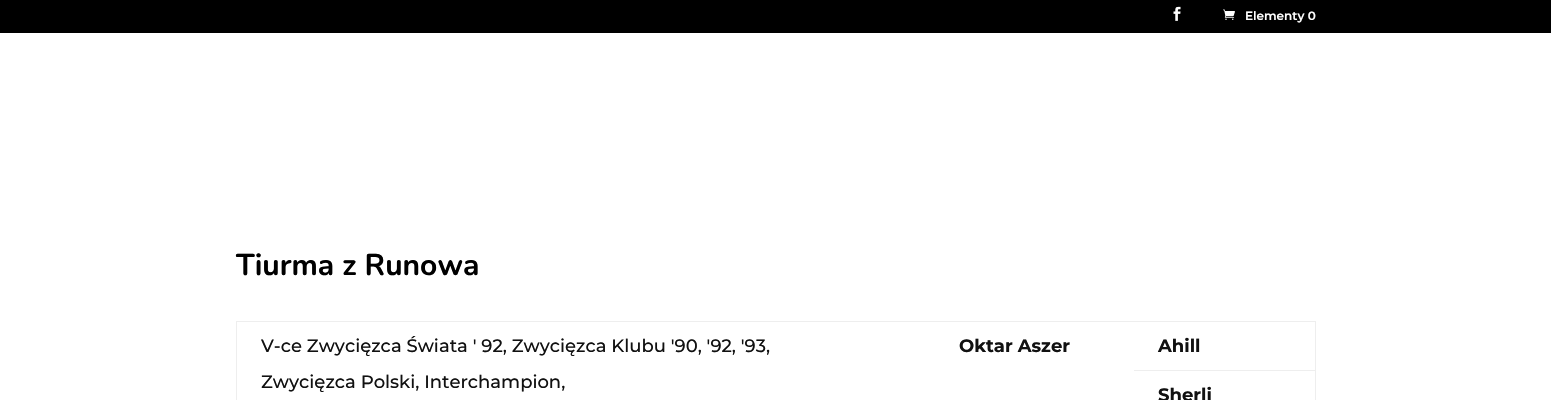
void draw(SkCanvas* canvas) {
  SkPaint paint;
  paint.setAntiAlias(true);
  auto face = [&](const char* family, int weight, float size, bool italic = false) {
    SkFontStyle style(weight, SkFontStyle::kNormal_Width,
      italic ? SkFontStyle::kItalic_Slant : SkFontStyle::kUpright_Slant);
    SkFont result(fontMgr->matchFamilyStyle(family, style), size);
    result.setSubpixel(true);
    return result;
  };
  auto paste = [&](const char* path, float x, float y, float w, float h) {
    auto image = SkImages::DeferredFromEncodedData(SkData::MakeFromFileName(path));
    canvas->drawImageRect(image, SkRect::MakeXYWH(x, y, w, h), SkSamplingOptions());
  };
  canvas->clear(0xffffffff);
  paint.setColor(0xff000000);
  canvas->drawRect(SkRect::MakeXYWH(0, 0, 1551, 33), paint);
  paste("img/1.png", 1173, 6, 8, 15);
  paste("img/2.png", 1223, 9, 12, 11);
  {
    const struct { float x, y, w, h; SkColor color; } items[] = {
      {236, 321, 1080, 1, 0xffeeeeee},
      {1315, 321, 1, 79, 0xffeeeeee},
      {236, 321, 1, 79, 0xffeeeeee},
      {1134, 370, 182, 1, 0xffeeeeee},
    };
    for (auto [x, y, w, h, color] : items) {
      paint.setColor(color);
      canvas->drawRect(SkRect::MakeXYWH(x, y, w, h), paint);
    }
  }
  auto f0 = face("Montserrat", 100, 12);
  paint.setColor(0xffffffff);
  canvas->drawString("Elementy 0", 1245, 20, f0, paint);
  auto f1 = face("Nunito", 200, 30);
  paint.setColor(0xff000000);
  canvas->drawString("Tiurma z Runowa", 236, 275, f1, paint);
  auto f2 = face("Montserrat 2", 100, 18);
  paint.setColor(0xff111111);
  canvas->drawString("V-ce Zwycięzca Świata ' 92, Zwycięzca Klubu '90, '92, '93,", 261, 352, f2, paint);
  canvas->drawString("Zwycięzca Polski, Interchampion,", 261, 388, f2, paint);
  auto f3 = face("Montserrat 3", 100, 18);
  {
    const struct { const char* s; float x, y; } items[] = {
      {"Oktar Aszer", 959, 352},
      {"Ahill", 1158, 352},
      {"Sherli", 1158, 401},
    };
    for (auto [s, x, y] : items) {
      canvas->drawString(s, x, y, f3, paint);
    }
  }
}
